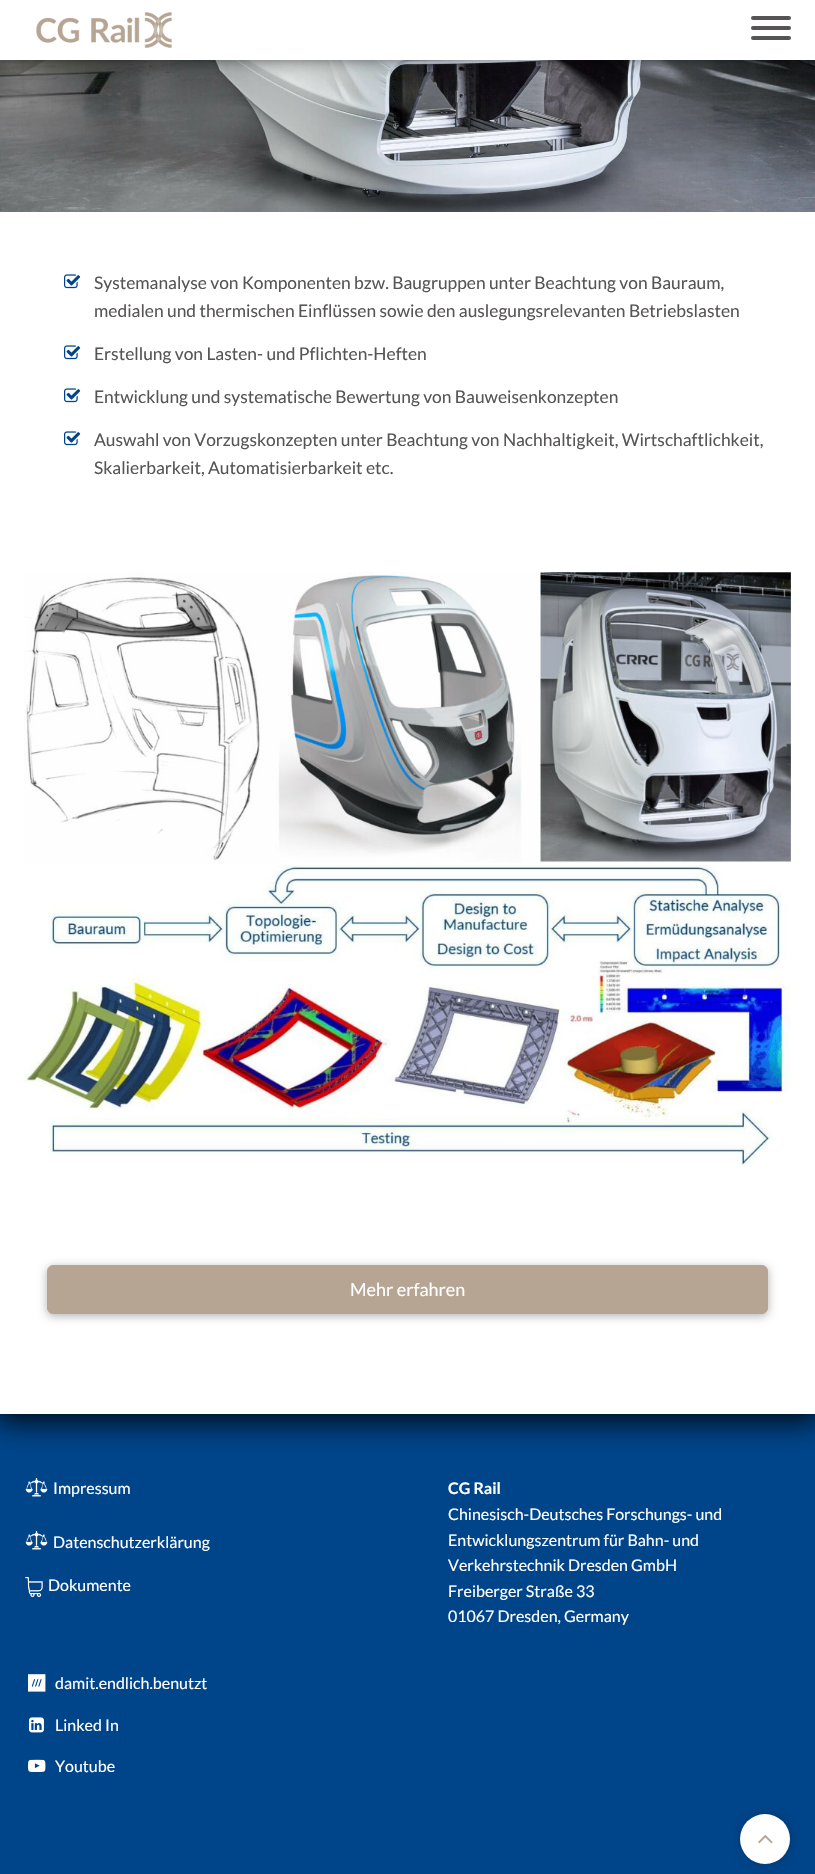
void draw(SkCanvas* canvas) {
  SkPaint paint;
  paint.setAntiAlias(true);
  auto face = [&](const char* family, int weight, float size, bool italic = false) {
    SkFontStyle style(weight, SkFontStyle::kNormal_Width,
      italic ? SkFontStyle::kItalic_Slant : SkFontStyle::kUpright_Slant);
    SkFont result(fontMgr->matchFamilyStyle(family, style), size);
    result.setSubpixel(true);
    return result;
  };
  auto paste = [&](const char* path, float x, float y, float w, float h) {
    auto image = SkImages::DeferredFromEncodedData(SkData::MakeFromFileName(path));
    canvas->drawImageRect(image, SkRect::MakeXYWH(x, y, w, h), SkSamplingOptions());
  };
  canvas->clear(0xffffffff);
  paint.setColor(0xff004489);
  canvas->drawRect(SkRect::MakeXYWH(0, 1414, 815, 460), paint);
  canvas->save();
  canvas->clipRect(SkRect::MakeXYWH(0, 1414, 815, 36));
  paint.setColor(0xff000000);
  paint.setMaskFilter(SkMaskFilter::MakeBlur(kNormal_SkBlurStyle, 15));
  canvas->drawRect(SkRect::MakeXYWH(-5, -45, 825, 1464), paint);
  paint.setMaskFilter(nullptr);
  canvas->restore();
  paste("img/2.png", 0, 60, 815, 152);
  paint.setMaskFilter(SkMaskFilter::MakeBlur(kNormal_SkBlurStyle, 10));
  canvas->drawRect(SkRect::MakeXYWH(16, 26, 783, 28), paint);
  paint.setMaskFilter(nullptr);
  paint.setColor(0xffffffff);
  canvas->drawRect(SkRect::MakeXYWH(0, 3, 815, 57), paint);
  paste("img/1.png", 36, 12, 136, 36);
  paint.setColor(0xff575455);
  canvas->drawRoundRect(SkRect::MakeXYWH(751, 16, 40, 4), 2, 2, paint);
  canvas->drawRoundRect(SkRect::MakeXYWH(751, 26, 40, 4), 2, 2, paint);
  canvas->drawRoundRect(SkRect::MakeXYWH(751, 36, 40, 4), 2, 2, paint);
  paste("img/3.png", 64, 274, 17, 15);
  paste("img/3.png", 64, 345, 17, 15);
  paste("img/3.png", 64, 388, 17, 15);
  paste("img/3.png", 64, 431, 17, 15);
  paste("img/4.png", 24, 572, 767, 291);
  paste("img/5.png", 24, 865, 767, 300);
  paint.setColor(0x4d000000);
  paint.setMaskFilter(SkMaskFilter::MakeBlur(kNormal_SkBlurStyle, 5));
  canvas->drawRoundRect(SkRect::MakeXYWH(47, 1267, 721, 49), 6, 6, paint);
  paint.setMaskFilter(nullptr);
  paint.setColor(0xffb7a594);
  canvas->drawRoundRect(SkRect::MakeXYWH(47.5f, 1265.5f, 720, 48), 5.5f, 5.5f, paint);
  paint.setStroke(true);
  paint.setStrokeWidth(1);
  canvas->drawRoundRect(SkRect::MakeXYWH(47.5f, 1265.5f, 720, 48), 5.5f, 5.5f, paint);
  paste("img/6.png", 25, 1478, 23, 19);
  paste("img/6.png", 25, 1531, 23, 19);
  paste("img/7.png", 25, 1577, 18, 20);
  paste("img/8.png", 28, 1674, 18, 18);
  paste("img/9.png", 29, 1717, 15, 16);
  paste("img/10.png", 28, 1759, 18, 13);
  paint.setStroke(false);
  paint.setColor(0x33000000);
  paint.setMaskFilter(SkMaskFilter::MakeBlur(kNormal_SkBlurStyle, 5));
  canvas->drawRoundRect(SkRect::MakeXYWH(740, 1814, 50, 50), 25, 25, paint);
  paint.setMaskFilter(nullptr);
  paint.setColor(0xffffffff);
  canvas->drawCircle(765, 1839, 25, paint);
  paste("img/11.png", 758, 1834, 15, 10);
  auto f0 = face("Lato", 400, 17.4f);
  paint.setColor(0xff575455);
  {
    const struct { const char* s; float x, y; } items[] = {
      {"Systemanalyse von Komponenten bzw. Baugruppen unter Beachtung von Bauraum,", 94, 289},
      {"medialen und thermischen Einflüssen sowie den auslegungsrelevanten Betriebslasten", 94, 317},
      {"Erstellung von Lasten- und Pflichten-Heften", 94, 360},
      {"Entwicklung und systematische Bewertung von Bauweisenkonzepten", 94, 403},
      {"Auswahl von Vorzugskonzepten unter Beachtung von Nachhaltigkeit, Wirtschaftlichkeit,", 94, 446},
      {"Skalierbarkeit, Automatisierbarkeit etc.", 94, 474},
    };
    for (auto [s, x, y] : items) {
      canvas->drawString(s, x, y, f0, paint);
    }
  }
  auto f1 = face("Lato", 400, 18);
  paint.setColor(0xffffffff);
  canvas->drawString("Mehr erfahren", 350, 1296, f1, paint);
  auto f2 = face("Lato", 400, 16);
  {
    const struct { const char* s; float x, y; } items[] = {
      {"Impressum", 53, 1494},
      {"Datenschutzerklärung", 53, 1548},
      {"Dokumente", 48, 1591},
    };
    for (auto [s, x, y] : items) {
      canvas->drawString(s, x, y, f2, paint);
    }
  }
  auto f3 = face("Lato", 700, 16);
  canvas->drawString("CG Rail", 448, 1494, f3, paint);
  {
    const struct { const char* s; float x, y; } items[] = {
      {"Chinesisch-Deutsches Forschungs- und", 448, 1520},
      {"Entwicklungszentrum für Bahn- und", 448, 1546},
      {"Verkehrstechnik Dresden GmbH", 448, 1571},
      {"Freiberger Straße 33", 448, 1597},
      {"01067 Dresden, Germany", 448, 1622},
      {"damit.endlich.benutzt", 55, 1689},
      {"Linked In", 55, 1731},
      {"Youtube", 55, 1772},
    };
    for (auto [s, x, y] : items) {
      canvas->drawString(s, x, y, f2, paint);
    }
  }
}
